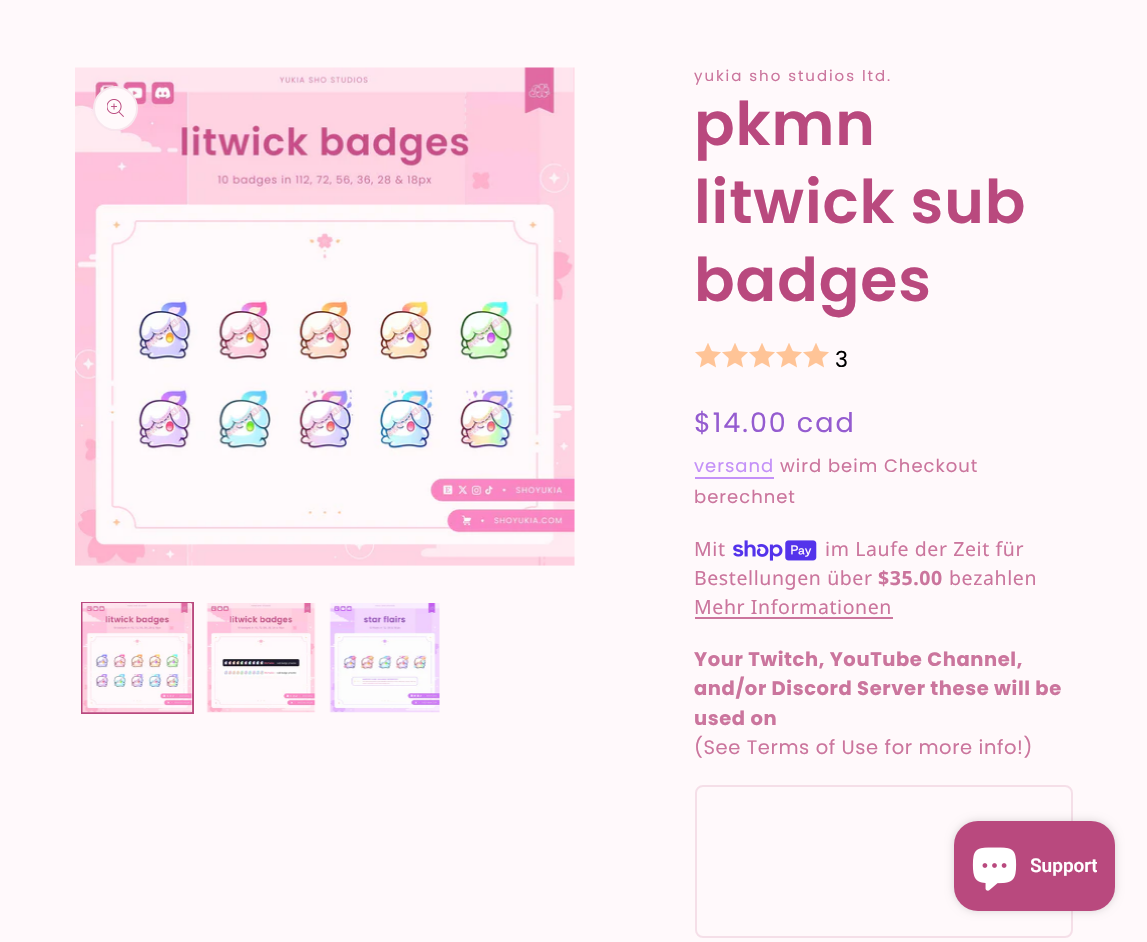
void draw(SkCanvas* canvas) {
  SkPaint paint;
  paint.setAntiAlias(true);
  auto face = [&](const char* family, int weight, float size, bool italic = false) {
    SkFontStyle style(weight, SkFontStyle::kNormal_Width,
      italic ? SkFontStyle::kItalic_Slant : SkFontStyle::kUpright_Slant);
    SkFont result(fontMgr->matchFamilyStyle(family, style), size);
    result.setSubpixel(true);
    return result;
  };
  auto writeSpaced = [&](const char* s, float x, float y, const SkFont& font, const SkPaint& ink, float letter, float word) {
    std::vector<SkGlyphID> glyphs(font.countText(s, strlen(s), SkTextEncoding::kUTF8));
    std::vector<float> xs(glyphs.size());
    font.textToGlyphs(s, strlen(s), SkTextEncoding::kUTF8, glyphs);
    font.getXPos(glyphs, xs, x);
    float extra = 0;
    for (size_t i = 0; i < glyphs.size(); i++) {
      xs[i] += extra;
      extra += letter + word * (glyphs[i] == font.unicharToGlyph(' '));
    }
    canvas->drawTextBlob(SkTextBlob::MakeFromPosHGlyphs(glyphs, xs, y, font), 0, 0, ink);
  };
  auto paste = [&](const char* path, float x, float y, float w, float h) {
    auto image = SkImages::DeferredFromEncodedData(SkData::MakeFromFileName(path));
    canvas->drawImageRect(image, SkRect::MakeXYWH(x, y, w, h), SkSamplingOptions());
  };
  canvas->clear(0xfffff9fb);
  paste("img/1.png", 75, 67, 500, 499);
  paint.setColor(0xfffff9fb);
  canvas->drawCircle(115.5f, 108.5f, 22.5f, paint);
  paint.setStroke(true);
  paint.setStrokeWidth(2);
  paint.setColor(0x1ab9497e);
  canvas->drawCircle(115.5f, 108.5f, 21.5f, paint);
  paste("img/2.png", 107, 99, 17, 18);
  paint.setColor(0xffb9497e);
  canvas->drawRect(SkRect::MakeXYWH(82, 603, 111, 110), paint);
  paste("img/3.png", 82, 603, 111, 110);
  paste("img/4.png", 206, 603, 110, 110);
  paste("img/5.png", 329, 603, 111, 110);
  paste("img/6.png", 695, 343, 26, 25);
  paste("img/6.png", 722, 343, 26, 25);
  paste("img/6.png", 749, 343, 26, 25);
  paste("img/6.png", 776, 343, 26, 25);
  paste("img/6.png", 803, 343, 26, 25);
  paint.setStroke(false);
  paint.setColor(0xffc491f8);
  canvas->drawRect(SkRect::MakeXYWH(695, 477, 79, 2), paint);
  paste("img/7.png", 733, 540, 84, 21);
  paint.setColor(0xffcb759d);
  canvas->drawRect(SkRect::MakeXYWH(695, 617, 198, 2), paint);
  paint.setStroke(true);
  paint.setColor(0x26b9497e);
  canvas->drawRoundRect(SkRect::MakeXYWH(696, 786, 376, 151), 7, 7, paint);
  paint.setStroke(false);
  paint.setColor(0x26000000);
  paint.setMaskFilter(SkMaskFilter::MakeBlur(kNormal_SkBlurStyle, 4));
  canvas->drawRoundRect(SkRect::MakeXYWH(954, 821, 161, 90), 24, 24, paint);
  paint.setMaskFilter(nullptr);
  paint.setColor(0xffb9497e);
  canvas->drawRoundRect(SkRect::MakeXYWH(954, 821, 161, 90), 24, 24, paint);
  paste("img/8.png", 972, 847, 45, 44);
  auto f0 = face("Poppins", 400, 15);
  paint.setColor(0xffcb759d);
  writeSpaced("yukia sho studios ltd.", 694, 81, f0, paint, 1.95f, 0);
  auto f1 = face("Poppins", 600, 60);
  paint.setColor(0xffb9497e);
  {
    const struct { const char* s; float x, y; } items[] = {
      {"pkmn", 694, 145},
      {"litwick sub", 694, 223},
      {"badges", 694, 301},
    };
    for (auto [s, x, y] : items) {
      writeSpaced(s, x, y, f1, paint, 0.9f, 0);
    }
  }
  auto f2 = face("Poppins", 400, 22);
  paint.setColor(0xff000000);
  writeSpaced("3", 835, 367, f2, paint, 0.9f, 0);
  auto f3 = face("Poppins", 400, 27);
  paint.setColor(0xff955cd0);
  writeSpaced("$14.00 cad", 694, 432, f3, paint, 1.95f, 0);
  auto f4 = face("Poppins", 400, 18);
  paint.setColor(0xffc491f8);
  writeSpaced("versand", 694, 472, f4, paint, 1, 0);
  paint.setColor(0xffcb759d);
  writeSpaced("wird beim Checkout", 780, 472, f4, paint, 1, 0);
  writeSpaced("berechnet", 694, 503, f4, paint, 1, 0);
  auto f5 = face("Noto Sans", 400, 19.5f);
  {
    const struct { const char* s; float x, y; } items[] = {
      {"Mit", 694, 556},
      {"im Laufe der Zeit für", 825, 556},
      {"Bestellungen über", 694, 585},
    };
    for (auto [s, x, y] : items) {
      writeSpaced(s, x, y, f5, paint, 0.6f, 0);
    }
  }
  auto f6 = face("Noto Sans", 700, 19.5f);
  writeSpaced("$35.00", 878, 585, f6, paint, 0.6f, 0);
  writeSpaced("bezahlen", 949, 585, f5, paint, 0.6f, 0);
  writeSpaced("Mehr Informationen", 694, 614, f5, paint, 0.6f, 0);
  auto f7 = face("Poppins", 700, 19.5f);
  {
    const struct { const char* s; float x, y; } items[] = {
      {"Your Twitch, YouTube Channel,", 694, 666},
      {"and/or Discord Server these will be", 694, 695},
      {"used on", 694, 725},
    };
    for (auto [s, x, y] : items) {
      writeSpaced(s, x, y, f7, paint, 0.6f, 0);
    }
  }
  auto f8 = face("Poppins", 400, 19.5f);
  writeSpaced("(See Terms of Use for more info!)", 694, 754, f8, paint, 0.6f, 0);
  canvas->save();
  canvas->clipRect(SkRect::MakeXYWH(1031, 843, 66, 45));
  auto f9 = face("Roboto", 600, 19);
  paint.setColor(0xffffffff);
  canvas->drawString("Support", 1030, 872, f9, paint);
  canvas->restore();
}
